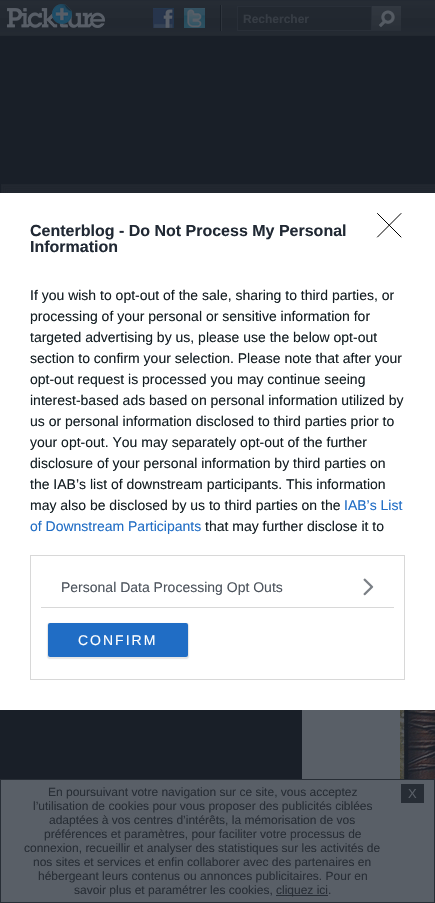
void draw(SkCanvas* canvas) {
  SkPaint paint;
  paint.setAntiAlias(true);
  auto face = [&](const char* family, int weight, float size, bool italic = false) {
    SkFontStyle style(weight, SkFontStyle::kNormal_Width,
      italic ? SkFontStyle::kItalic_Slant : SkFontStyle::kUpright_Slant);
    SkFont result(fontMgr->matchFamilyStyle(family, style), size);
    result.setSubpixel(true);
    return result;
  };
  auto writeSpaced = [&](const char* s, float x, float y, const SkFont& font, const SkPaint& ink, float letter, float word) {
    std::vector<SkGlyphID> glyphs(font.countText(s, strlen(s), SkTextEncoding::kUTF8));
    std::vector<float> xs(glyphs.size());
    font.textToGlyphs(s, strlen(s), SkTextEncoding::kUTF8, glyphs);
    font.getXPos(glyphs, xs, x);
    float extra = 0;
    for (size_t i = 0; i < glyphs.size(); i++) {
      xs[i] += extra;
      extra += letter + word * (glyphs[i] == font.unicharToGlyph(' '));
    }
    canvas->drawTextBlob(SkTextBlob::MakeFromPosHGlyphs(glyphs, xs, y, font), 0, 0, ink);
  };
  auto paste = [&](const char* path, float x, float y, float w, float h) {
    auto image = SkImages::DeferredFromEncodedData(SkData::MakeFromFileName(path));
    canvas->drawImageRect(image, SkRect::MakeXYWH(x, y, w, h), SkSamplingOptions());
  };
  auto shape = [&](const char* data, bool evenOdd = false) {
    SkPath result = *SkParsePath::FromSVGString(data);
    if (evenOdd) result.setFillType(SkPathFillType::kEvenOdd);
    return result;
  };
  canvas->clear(0xff191f28);
  paste("img/1.png", 0, 0, 435, 36);
  paste("img/2.png", 7, 4, 98, 24);
  paste("img/3.png", 153, 8, 21, 20);
  paste("img/4.png", 184, 8, 21, 20);
  paste("img/5.png", 220, 5, 2, 26);
  paste("img/6.png", 238, 7, 133, 23);
  paint.setStroke(true);
  paint.setStrokeWidth(1);
  paint.setColor(0xff292f38);
  canvas->drawRect(SkRect::MakeXYWH(237.5f, 6.5f, 134, 24), paint);
  paste("img/7.png", 372, 6, 29, 25);
  paste("img/8.png", 1, 184, 434, 9);
  paint.setStroke(false);
  paint.setColor(0xff595f67);
  canvas->drawRect(SkRect::MakeXYWH(302, 710, 98, 69), paint);
  paste("img/9.png", 400, 710, 35, 69);
  paint.setColor(0xffffffff);
  canvas->drawRect(SkRect::MakeXYWH(0, 193, 435, 517), paint);
  paint.setStroke(true);
  paint.setStrokeCap(SkPaint::kRound_Cap);
  paint.setStrokeJoin(SkPaint::kRound_Join);
  paint.setColor(0xff000000);
  canvas->drawPath(shape("M377.5 213.5L401 237M401 213.5L377.5 237"), paint);
  paint.setStrokeCap(SkPaint::kButt_Cap);
  paint.setStrokeJoin(SkPaint::kMiter_Join);
  paint.setColor(0xffd8d8d8);
  canvas->drawRect(SkRect::MakeXYWH(30.5f, 555.5f, 374, 124), paint);
  paint.setStroke(false);
  canvas->drawRect(SkRect::MakeXYWH(41, 607, 353, 1), paint);
  paste("img/10.png", 363, 578, 11, 18);
  paint.setColor(0x1a000000);
  paint.setMaskFilter(SkMaskFilter::MakeBlur(kNormal_SkBlurStyle, 0.5f));
  canvas->drawRoundRect(SkRect::MakeXYWH(47, 623, 142, 36), 3, 3, paint);
  paint.setMaskFilter(nullptr);
  paint.setColor(0xff206dc5);
  canvas->drawRoundRect(SkRect::MakeXYWH(48, 623, 140, 34), 2, 2, paint);
  paint.setColor(0xff595f67);
  canvas->drawRect(SkRect::MakeXYWH(0.5f, 779.5f, 434, 123), paint);
  paint.setStroke(true);
  paint.setColor(0xff272d35);
  canvas->drawRect(SkRect::MakeXYWH(0.5f, 779.5f, 434, 123), paint);
  paint.setStroke(false);
  canvas->drawRect(SkRect::MakeXYWH(401, 784, 23, 19), paint);
  canvas->drawRect(SkRect::MakeXYWH(276, 895, 52, 1), paint);
  auto f0 = face("Liberation Sans", 700, 12);
  paint.setColor(0xff363c44);
  canvas->drawString("Rechercher", 243, 23, f0, paint);
  auto f1 = face("Liberation Sans", 700, 16);
  paint.setColor(0xff212934);
  canvas->drawString("Centerblog - Do Not Process My Personal", 30, 236, f1, paint);
  canvas->drawString("Information", 30, 252, f1, paint);
  auto f2 = face("Liberation Sans", 400, 14);
  paint.setColor(0xff141e23);
  {
    const struct { const char* s; float x, y; } items[] = {
      {"If you wish to opt-out of the sale, sharing to third parties, or", 30, 300},
      {"processing of your personal or sensitive information for", 30, 321},
      {"targeted advertising by us, please use the below opt-out", 30, 342},
      {"section to confirm your selection. Please note that after your", 30, 363},
      {"opt-out request is processed you may continue seeing", 30, 384},
      {"interest-based ads based on personal information utilized by", 30, 405},
      {"us or personal information disclosed to third parties prior to", 30, 426},
      {"your opt-out. You may separately opt-out of the further", 30, 447},
      {"disclosure of your personal information by third parties on", 30, 468},
      {"the IAB’s list of downstream participants. This information", 30, 489},
      {"may also be disclosed by us to third parties on the", 30, 510},
    };
    for (auto [s, x, y] : items) {
      canvas->drawString(s, x, y, f2, paint);
    }
  }
  paint.setColor(0xff206dc5);
  canvas->drawString("IAB’s List", 344, 510, f2, paint);
  canvas->drawString("of Downstream Participants", 30, 531, f2, paint);
  paint.setColor(0xff141e23);
  canvas->drawString("that may further disclose it to", 205, 531, f2, paint);
  paint.setColor(0xff4d545d);
  canvas->drawString("Personal Data Processing Opt Outs", 61, 592, f2, paint);
  paint.setColor(0xffffffff);
  writeSpaced("CONFIRM", 78, 645, f2, paint, 2, 0);
  auto f3 = face("Liberation Sans", 400, 12);
  paint.setColor(0xff272d35);
  canvas->drawString("En poursuivant votre navigation sur ce site, vous acceptez", 48, 796, f3, paint);
  auto f4 = face("Liberation Sans", 400, 13);
  paint.setColor(0xff595f67);
  canvas->drawString("X", 408, 798, f4, paint);
  paint.setColor(0xff272d35);
  {
    const struct { const char* s; float x, y; } items[] = {
      {"l’utilisation de cookies pour vous proposer des publicités ciblées", 33, 810},
      {"adaptées à vos centres d’intérêts, la mémorisation de vos", 49, 824},
      {"préférences et paramètres, pour faciliter votre processus de", 44, 838},
      {"connexion, recueillir et analyser des statistiques sur les activités de", 24, 852},
      {"nos sites et services et enfin collaborer avec des partenaires en", 33, 866},
      {"hébergeant leurs contenus ou annonces publicitaires. Pour en", 38, 880},
      {"savoir plus et paramétrer les cookies,", 74, 894},
      {"cliquez ici.", 276, 894},
    };
    for (auto [s, x, y] : items) {
      canvas->drawString(s, x, y, f3, paint);
    }
  }
}
